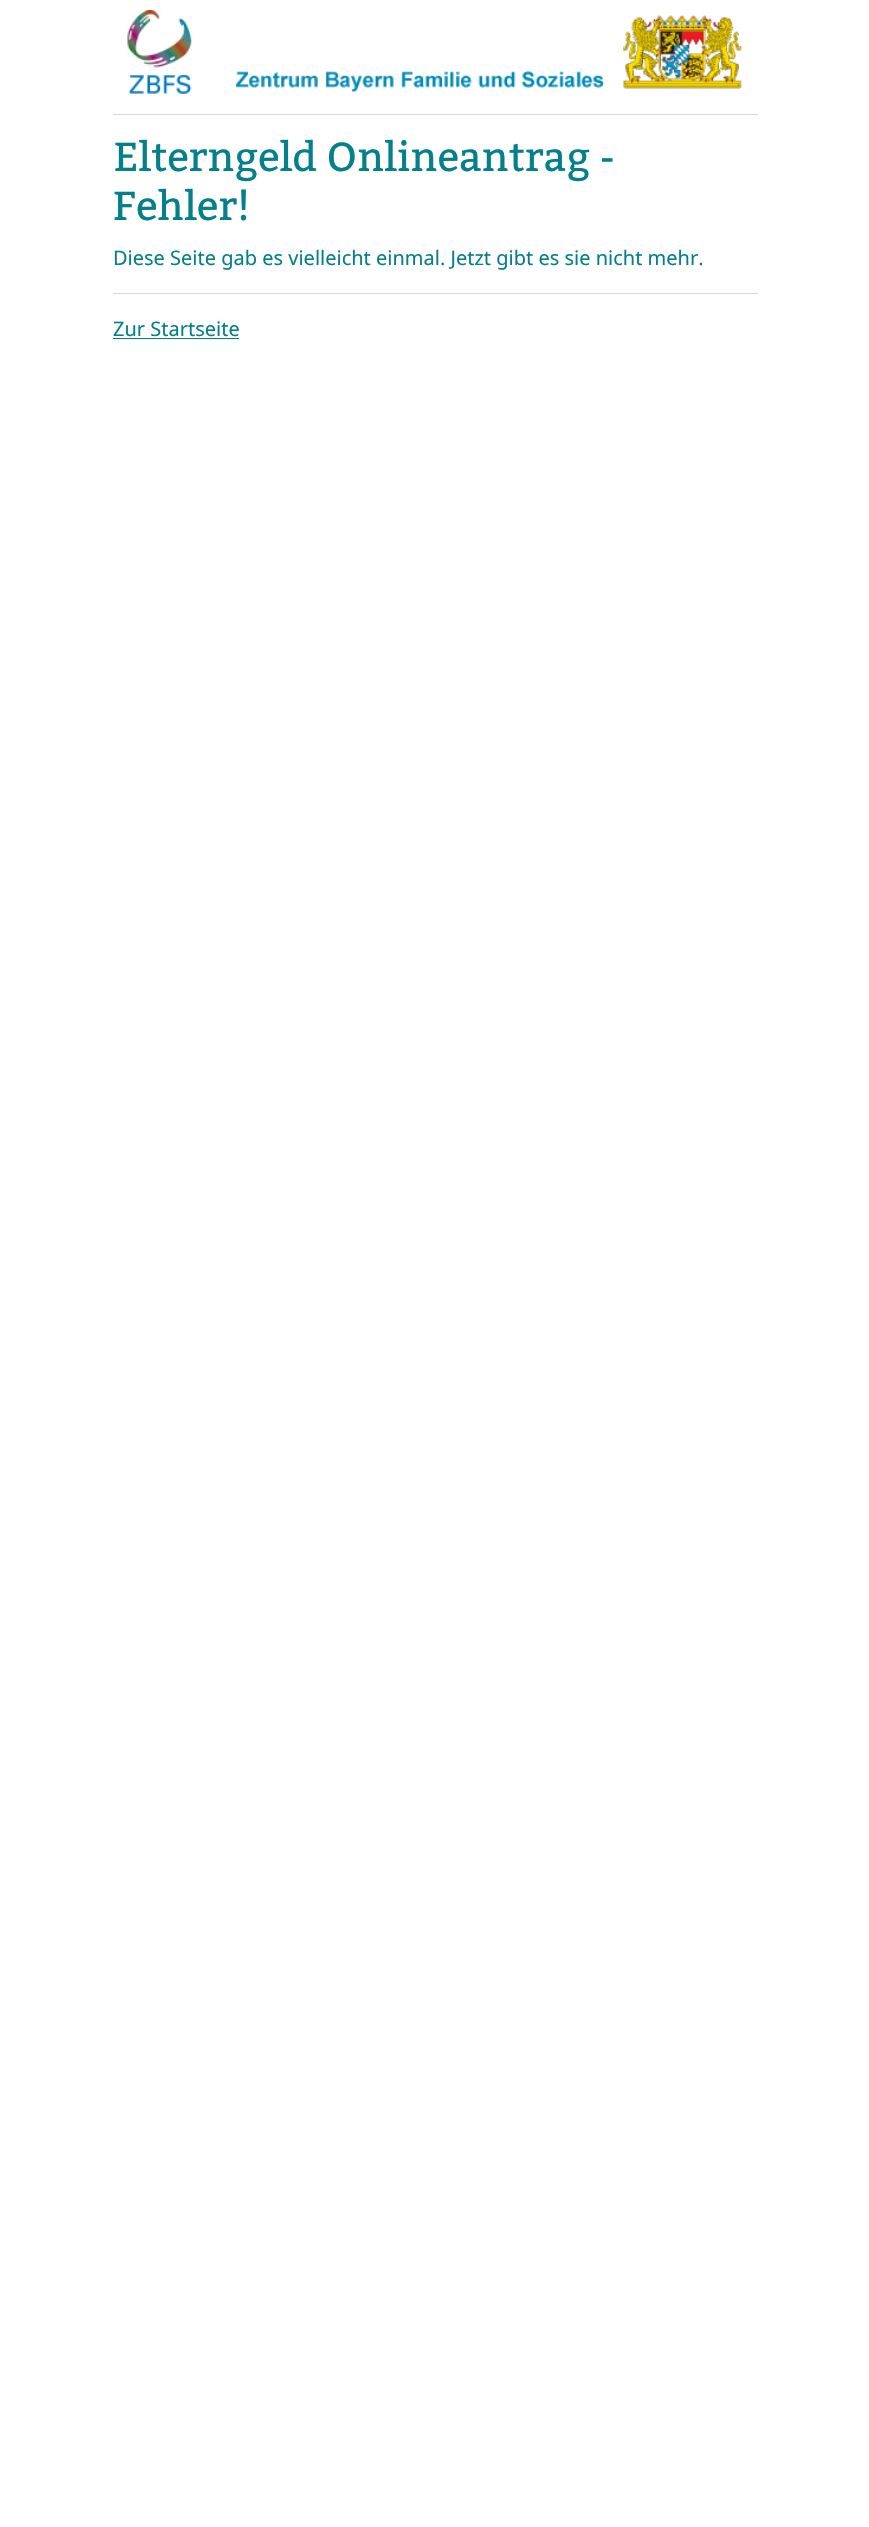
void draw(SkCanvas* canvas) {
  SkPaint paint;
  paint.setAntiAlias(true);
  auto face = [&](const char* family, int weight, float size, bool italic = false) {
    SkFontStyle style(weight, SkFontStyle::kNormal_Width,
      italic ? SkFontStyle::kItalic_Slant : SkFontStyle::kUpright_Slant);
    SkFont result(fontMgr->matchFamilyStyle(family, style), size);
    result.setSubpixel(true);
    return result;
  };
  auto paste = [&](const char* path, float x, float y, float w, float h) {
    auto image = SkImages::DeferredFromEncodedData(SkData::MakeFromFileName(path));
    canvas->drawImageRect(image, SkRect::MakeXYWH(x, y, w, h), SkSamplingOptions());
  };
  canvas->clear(0xffffffff);
  paste("img/1.png", 127, 10, 65, 84);
  paste("img/2.png", 236, 15, 506, 77);
  {
    const struct { float x, y, w, h; SkColor color; } items[] = {
      {113, 114, 645, 1, 0xffd7d7d7},
      {113, 293, 645, 1, 0xffd7d7d7},
      {113, 338, 126, 1, 0xff047f8c},
    };
    for (auto [x, y, w, h, color] : items) {
      paint.setColor(color);
      canvas->drawRect(SkRect::MakeXYWH(x, y, w, h), paint);
    }
  }
  auto f0 = face("Bitter", 400, 40.5f);
  canvas->drawString("Elterngeld Onlineantrag -", 113, 171, f0, paint);
  canvas->drawString("Fehler!", 113, 220, f0, paint);
  auto f1 = face("Noto Sans", 400, 20);
  canvas->drawString("Diese Seite gab es vielleicht einmal. Jetzt gibt es sie nicht mehr.", 113, 265, f1, paint);
  canvas->drawString("Zur Startseite", 113, 336, f1, paint);
}
